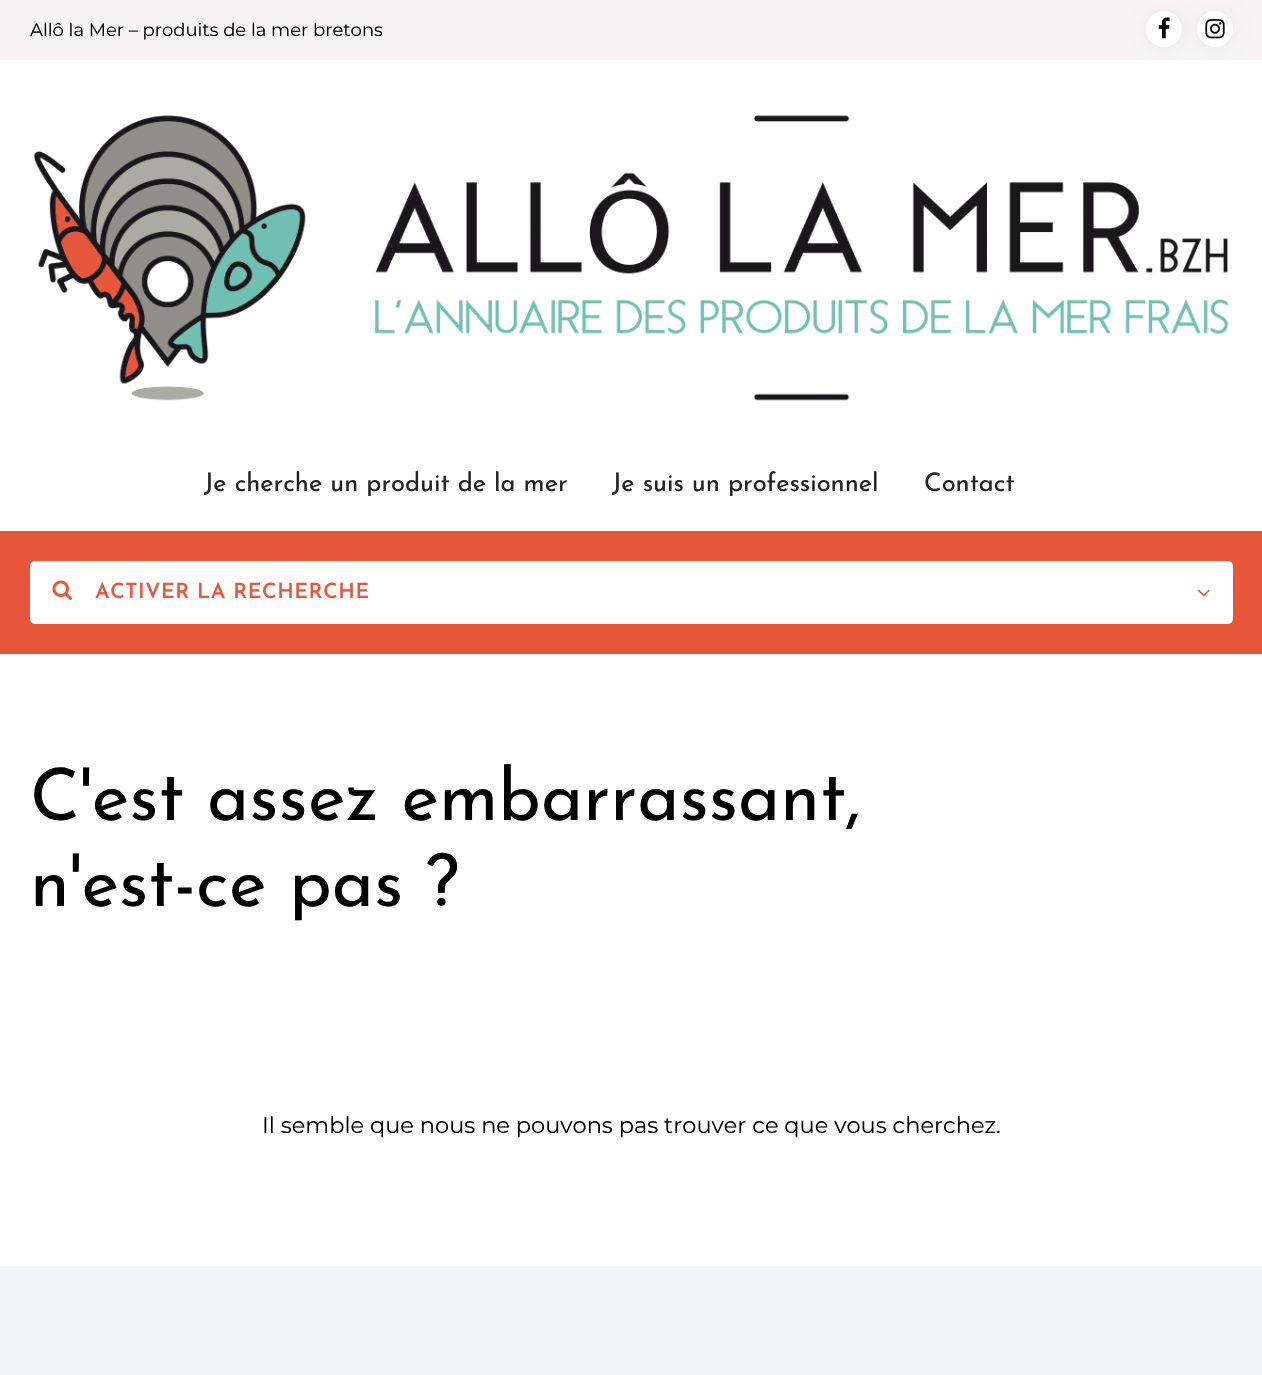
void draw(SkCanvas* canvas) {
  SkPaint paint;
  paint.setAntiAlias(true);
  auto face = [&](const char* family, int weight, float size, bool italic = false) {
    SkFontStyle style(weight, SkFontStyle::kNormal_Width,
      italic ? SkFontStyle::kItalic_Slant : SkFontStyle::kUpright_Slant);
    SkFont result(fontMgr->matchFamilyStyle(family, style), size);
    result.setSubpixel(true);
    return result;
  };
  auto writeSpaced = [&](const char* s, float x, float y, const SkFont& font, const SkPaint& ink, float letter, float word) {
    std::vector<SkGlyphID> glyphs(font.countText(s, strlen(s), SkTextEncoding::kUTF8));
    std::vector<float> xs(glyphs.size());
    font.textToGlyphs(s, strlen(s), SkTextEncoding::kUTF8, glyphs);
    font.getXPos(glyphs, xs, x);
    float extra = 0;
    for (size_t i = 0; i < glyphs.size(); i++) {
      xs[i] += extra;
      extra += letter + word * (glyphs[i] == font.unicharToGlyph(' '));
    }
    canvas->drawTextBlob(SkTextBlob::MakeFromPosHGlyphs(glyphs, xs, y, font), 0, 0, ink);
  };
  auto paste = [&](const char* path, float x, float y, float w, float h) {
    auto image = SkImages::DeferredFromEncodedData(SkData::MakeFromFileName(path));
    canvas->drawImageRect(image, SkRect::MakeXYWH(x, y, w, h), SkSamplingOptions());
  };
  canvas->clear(0xffffffff);
  paint.setColor(0xffdc5338);
  canvas->drawRect(SkRect::MakeXYWH(0, 531, 1262, 2), paint);
  paint.setColor(0xfff6f4f4);
  canvas->drawRect(SkRect::MakeXYWH(0, 0, 1262, 60), paint);
  paint.setColor(0x0d000000);
  paint.setMaskFilter(SkMaskFilter::MakeBlur(kNormal_SkBlurStyle, 7.5f));
  canvas->drawRoundRect(SkRect::MakeXYWH(1146, 11, 36, 36), 18, 18, paint);
  paint.setMaskFilter(nullptr);
  paint.setColor(0xffffffff);
  canvas->drawCircle(1164, 29, 18, paint);
  paste("img/1.png", 1158, 17, 12, 22);
  paint.setColor(0x0d000000);
  paint.setMaskFilter(SkMaskFilter::MakeBlur(kNormal_SkBlurStyle, 7.5f));
  canvas->drawRoundRect(SkRect::MakeXYWH(1197, 11, 36, 36), 18, 18, paint);
  paint.setMaskFilter(nullptr);
  paint.setColor(0xffffffff);
  canvas->drawCircle(1215, 29, 18, paint);
  paste("img/2.png", 1205, 19, 20, 20);
  paste("img/3.png", 33, 115, 1196, 286);
  paint.setColor(0xffe8573b);
  canvas->drawRect(SkRect::MakeXYWH(0, 533, 1262, 121), paint);
  paint.setColor(0xffffffff);
  canvas->drawRoundRect(SkRect::MakeXYWH(30, 561, 1203, 63), 5, 5, paint);
  paste("img/4.png", 52, 580, 20, 20);
  paste("img/5.png", 1197, 589, 13, 8);
  paint.setColor(0xfff2f4f5);
  canvas->drawRect(SkRect::MakeXYWH(0, 1266, 1262, 109), paint);
  auto f0 = face("Montserrat", 400, 18);
  paint.setColor(0xff000000);
  canvas->drawString("Allô la Mer – produits de la mer bretons", 30, 36, f0, paint);
  auto f1 = face("Josefin Sans", 400, 25.5f);
  paint.setColor(0xff222222);
  {
    const struct { const char* s; float x, y; } items[] = {
      {"Je cherche un produit de la mer", 204, 491},
      {"Je suis un professionnel", 612, 491},
      {"Contact", 924, 491},
    };
    for (auto [s, x, y] : items) {
      canvas->drawString(s, x, y, f1, paint);
    }
  }
  auto f2 = face("Josefin Sans", 600, 21);
  paint.setColor(0xffe8573b);
  writeSpaced("ACTIVER LA RECHERCHE", 95, 598, f2, paint, 0.5f, 0);
  auto f3 = face("Josefin Sans", 400, 72);
  paint.setColor(0xff000000);
  canvas->drawString("C'est assez embarrassant,", 30, 820, f3, paint);
  canvas->drawString("n'est-ce pas ?", 30, 906, f3, paint);
  auto f4 = face("Montserrat", 400, 22.5f);
  canvas->drawString("Il semble que nous ne pouvons pas trouver ce que vous cherchez.", 262, 1133, f4, paint);
}
